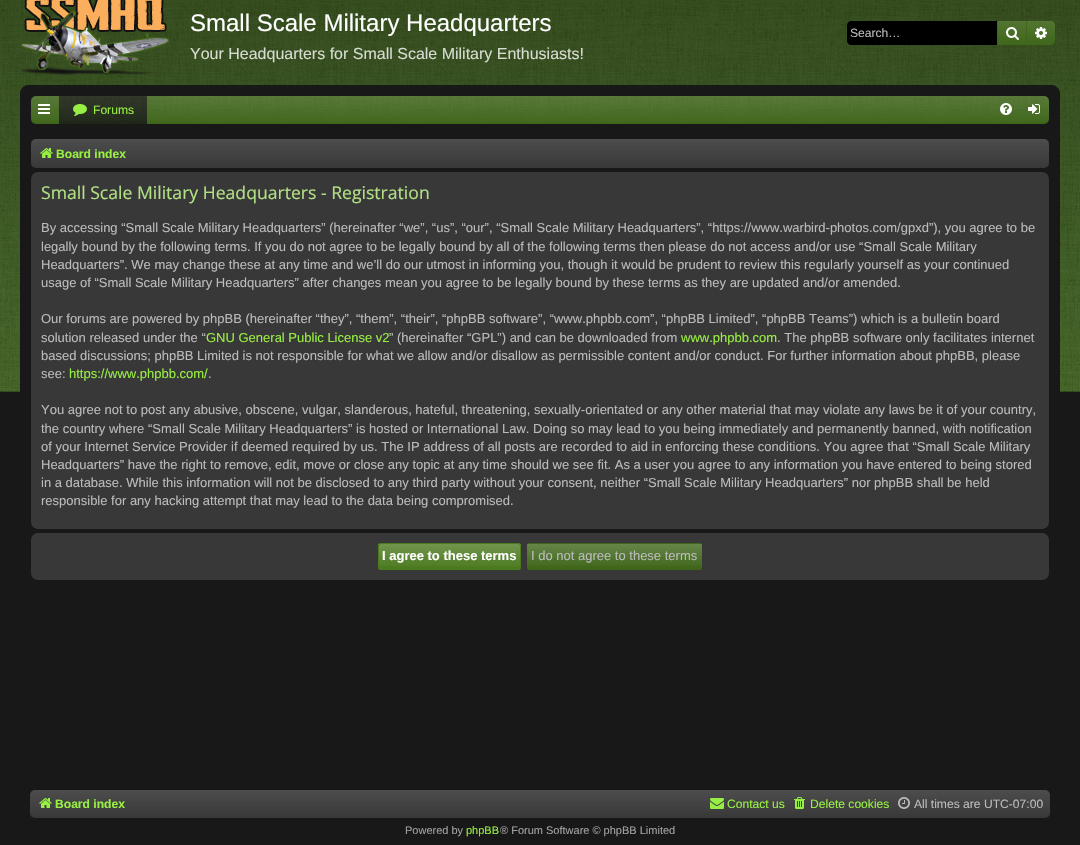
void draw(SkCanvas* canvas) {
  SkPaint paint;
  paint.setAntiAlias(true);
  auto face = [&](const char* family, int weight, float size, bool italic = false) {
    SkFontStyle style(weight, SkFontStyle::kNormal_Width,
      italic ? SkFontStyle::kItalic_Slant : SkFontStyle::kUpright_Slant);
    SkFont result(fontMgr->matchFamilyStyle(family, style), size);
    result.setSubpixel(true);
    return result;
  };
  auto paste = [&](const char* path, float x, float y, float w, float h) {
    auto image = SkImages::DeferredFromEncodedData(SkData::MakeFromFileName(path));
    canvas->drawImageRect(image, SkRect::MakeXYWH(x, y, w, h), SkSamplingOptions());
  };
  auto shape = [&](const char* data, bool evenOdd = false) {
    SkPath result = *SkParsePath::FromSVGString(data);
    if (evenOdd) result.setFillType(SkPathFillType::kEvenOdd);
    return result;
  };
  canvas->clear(0xff181818);
  paint.setColor(0xff3a5c1a);
  canvas->drawRect(SkRect::MakeXYWH(0, 0, 1080, 392), paint);
  paste("img/1.png", 0, 0, 1080, 392);
  paste("img/2.png", 21, 0, 148, 75);
  paint.setColor(0xff000000);
  canvas->drawPath(shape("M851 21H997V45H851C849 45 847 43 847 41V25C847 23 849 21 851 21Z"), paint);
  {
    const SkColor colors[] = {0xff527531, 0xff3f661a};
    const float stops[] = {0, 1};
    const SkPoint ends[] = {{1012, 21}, {1012, 45}};
    paint.setShader(SkGradientShader::MakeLinear(ends, colors, stops, 2, SkTileMode::kClamp));
    paint.setAlpha(255);
  }
  canvas->drawRect(SkRect::MakeXYWH(998, 21, 28, 24), paint);
  paint.setShader(nullptr);
  paint.setColor(0xff3f661a);
  canvas->drawRect(SkRect::MakeXYWH(1026, 21, 1, 24), paint);
  canvas->drawRect(SkRect::MakeXYWH(997, 21, 1, 24), paint);
  paste("img/3.png", 1006, 27, 13, 13);
  canvas->drawPath(shape("M1027 21H1051C1053 21 1055 23 1055 25V41C1055 43 1053 45 1051 45H1027Z"), paint);
  {
    const SkColor colors[] = {0x1affffff, 0x00ffffff};
    const float stops[] = {0, 1};
    const SkPoint ends[] = {{1041, 21}, {1041, 45}};
    paint.setShader(SkGradientShader::MakeLinear(ends, colors, stops, 2, SkTileMode::kClamp));
    paint.setAlpha(255);
  }
  canvas->drawPath(shape("M1027 21H1051C1053 21 1055 23 1055 25V41C1055 43 1053 45 1051 45H1027Z"), paint);
  paste("img/4.png", 1035, 27, 12, 12);
  paint.setShader(nullptr);
  paint.setColor(0xff181818);
  canvas->drawRoundRect(SkRect::MakeXYWH(20.5f, 85.5f, 1039, 699), 7.5f, 7.5f, paint);
  paint.setStroke(true);
  paint.setStrokeWidth(1);
  canvas->drawRoundRect(SkRect::MakeXYWH(20.5f, 85.5f, 1039, 699), 7.5f, 7.5f, paint);
  paint.setStroke(false);
  paint.setColor(0xff3f661a);
  canvas->drawRoundRect(SkRect::MakeXYWH(31, 96, 1018, 28), 5, 5, paint);
  paste("img/5.png", 31, 96, 1018, 26);
  paste("img/6.png", 38, 104, 12, 10);
  paint.setColor(0xff1f2718);
  canvas->drawRect(SkRect::MakeXYWH(59, 96, 88, 28), paint);
  paste("img/7.png", 59, 96, 88, 25);
  paste("img/8.png", 73, 104, 14, 12);
  paste("img/9.png", 1000, 103, 12, 12);
  paste("img/10.png", 1028, 104, 12, 10);
  paint.setColor(0xff383838);
  canvas->drawRoundRect(SkRect::MakeXYWH(31, 139, 1018, 29), 5, 5, paint);
  {
    const SkColor colors[] = {0x1affffff, 0x00ffffff};
    const float stops[] = {0, 1};
    const SkPoint ends[] = {{540, 139}, {540, 168}};
    paint.setShader(SkGradientShader::MakeLinear(ends, colors, stops, 2, SkTileMode::kClamp));
    paint.setAlpha(255);
  }
  canvas->drawRoundRect(SkRect::MakeXYWH(31, 139, 1018, 29), 5, 5, paint);
  paste("img/11.png", 40, 148, 13, 10);
  paint.setShader(nullptr);
  paint.setColor(0xff383838);
  canvas->drawRoundRect(SkRect::MakeXYWH(31, 172, 1018, 357), 7, 7, paint);
  canvas->drawRoundRect(SkRect::MakeXYWH(31, 533, 1018, 47), 7, 7, paint);
  paint.setColor(0xff4c7a1f);
  canvas->drawRoundRect(SkRect::MakeXYWH(378, 543, 143, 27), 3, 3, paint);
  {
    const SkColor colors[] = {0x33ffffff, 0x00ffffff};
    const float stops[] = {0, 1};
    const SkPoint ends[] = {{450, 544}, {450, 569}};
    paint.setShader(SkGradientShader::MakeLinear(ends, colors, stops, 2, SkTileMode::kClamp));
    paint.setAlpha(255);
  }
  canvas->drawRect(SkRect::MakeXYWH(378, 544, 143, 22), paint);
  paint.setStroke(true);
  paint.setShader(nullptr);
  paint.setColor(0xff4c7a1f);
  canvas->drawRoundRect(SkRect::MakeXYWH(378.5f, 543.5f, 142, 26), 2.5f, 2.5f, paint);
  paint.setStroke(false);
  paint.setColor(0xff3f661a);
  canvas->drawRoundRect(SkRect::MakeXYWH(527, 543, 175, 27), 3, 3, paint);
  {
    const SkColor colors[] = {0x33ffffff, 0x00ffffff};
    const float stops[] = {0, 1};
    const SkPoint ends[] = {{615, 544}, {615, 569}};
    paint.setShader(SkGradientShader::MakeLinear(ends, colors, stops, 2, SkTileMode::kClamp));
    paint.setAlpha(255);
  }
  canvas->drawRect(SkRect::MakeXYWH(527, 544, 175, 22), paint);
  paint.setShader(nullptr);
  paint.setColor(0xff383838);
  canvas->drawRoundRect(SkRect::MakeXYWH(30, 790, 1020, 28), 5, 5, paint);
  {
    const SkColor colors[] = {0x1affffff, 0x00ffffff};
    const float stops[] = {0, 1};
    const SkPoint ends[] = {{540, 790}, {540, 818}};
    paint.setShader(SkGradientShader::MakeLinear(ends, colors, stops, 2, SkTileMode::kClamp));
    paint.setAlpha(255);
  }
  canvas->drawRoundRect(SkRect::MakeXYWH(30, 790, 1020, 28), 5, 5, paint);
  paste("img/12.png", 39, 798, 13, 10);
  paste("img/13.png", 710, 798, 14, 11);
  paste("img/14.png", 794, 797, 11, 12);
  paste("img/15.png", 898, 797, 12, 12);
  auto f0 = face("Liberation Sans", 400, 24);
  paint.setShader(nullptr);
  paint.setColor(0xffffffff);
  canvas->drawString("Small Scale Military Headquarters", 190, 31, f0, paint);
  auto f1 = face("Liberation Sans", 400, 16);
  paint.setColor(0xffd7dcd2);
  canvas->drawString("Your Headquarters for Small Scale Military Enthusiasts!", 190, 59, f1, paint);
  auto f2 = face("Liberation Sans", 400, 12.1f);
  paint.setColor(0xffbbbbbb);
  canvas->drawString("Search…", 850, 37, f2, paint);
  paint.setColor(0xff98ef43);
  canvas->drawString("Forums", 93, 114, f2, paint);
  auto f3 = face("Liberation Sans", 700, 12.1f);
  canvas->drawString("Board index", 56, 158, f3, paint);
  auto f4 = face("Open Sans", 400, 17.6f);
  paint.setColor(0xffb2e085);
  canvas->drawString("Small Scale Military Headquarters - Registration", 41, 199, f4, paint);
  auto f5 = face("Liberation Sans", 400, 13);
  paint.setColor(0xffbbbbbb);
  {
    const struct { const char* s; float x, y; } items[] = {
      {"By accessing “Small Scale Military Headquarters” (hereinafter “we”, “us”, “our”, “Small Scale Military Headquarters”, “https://www.warbird-photos.com/gpxd”), you agree to be", 41, 232},
      {"legally bound by the following terms. If you do not agree to be legally bound by all of the following terms then please do not access and/or use “Small Scale Military", 41, 251},
      {"Headquarters”. We may change these at any time and we’ll do our utmost in informing you, though it would be prudent to review this regularly yourself as your continued", 41, 269},
      {"usage of “Small Scale Military Headquarters” after changes mean you agree to be legally bound by these terms as they are updated and/or amended.", 41, 287},
      {"Our forums are powered by phpBB (hereinafter “they”, “them”, “their”, “phpBB software”, “www.phpbb.com”, “phpBB Limited”, “phpBB Teams”) which is a bulletin board", 41, 323},
      {"solution released under the “", 41, 342},
    };
    for (auto [s, x, y] : items) {
      canvas->drawString(s, x, y, f5, paint);
    }
  }
  paint.setColor(0xff98ef43);
  canvas->drawString("GNU General Public License v2", 206, 342, f5, paint);
  paint.setColor(0xffbbbbbb);
  canvas->drawString("” (hereinafter “GPL”) and can be downloaded from", 389, 342, f5, paint);
  paint.setColor(0xff98ef43);
  canvas->drawString("www.phpbb.com", 681, 342, f5, paint);
  paint.setColor(0xffbbbbbb);
  {
    const struct { const char* s; float x, y; } items[] = {
      {". The phpBB software only facilitates internet", 777, 342},
      {"based discussions; phpBB Limited is not responsible for what we allow and/or disallow as permissible content and/or conduct. For further information about phpBB, please", 41, 360},
      {"see:", 41, 378},
    };
    for (auto [s, x, y] : items) {
      canvas->drawString(s, x, y, f5, paint);
    }
  }
  paint.setColor(0xff98ef43);
  canvas->drawString("https://www.phpbb.com/", 69, 378, f5, paint);
  paint.setColor(0xffbbbbbb);
  {
    const struct { const char* s; float x, y; } items[] = {
      {".", 208, 378},
      {"You agree not to post any abusive, obscene, vulgar, slanderous, hateful, threatening, sexually-orientated or any other material that may violate any laws be it of your country,", 41, 414},
      {"the country where “Small Scale Military Headquarters” is hosted or International Law. Doing so may lead to you being immediately and permanently banned, with notification", 41, 433},
      {"of your Internet Service Provider if deemed required by us. The IP address of all posts are recorded to aid in enforcing these conditions. You agree that “Small Scale Military", 41, 451},
      {"Headquarters” have the right to remove, edit, move or close any topic at any time should we see fit. As a user you agree to any information you have entered to being stored", 41, 469},
      {"in a database. While this information will not be disclosed to any third party without your consent, neither “Small Scale Military Headquarters” nor phpBB shall be held", 41, 487},
      {"responsible for any hacking attempt that may lead to the data being compromised.", 41, 505},
    };
    for (auto [s, x, y] : items) {
      canvas->drawString(s, x, y, f5, paint);
    }
  }
  auto f6 = face("Liberation Sans", 700, 13);
  paint.setColor(0xffffffff);
  canvas->drawString("I agree to these terms", 382, 560, f6, paint);
  paint.setColor(0xffbbbbbb);
  canvas->drawString("I do not agree to these terms", 531, 560, f5, paint);
  paint.setColor(0xff98ef43);
  canvas->drawString("Board index", 55, 808, f3, paint);
  canvas->drawString("Contact us", 727, 808, f2, paint);
  canvas->drawString("Delete cookies", 810, 808, f2, paint);
  paint.setColor(0xffbbbbbb);
  canvas->drawString("All times are UTC-07:00", 914, 808, f2, paint);
  auto f7 = face("Liberation Sans", 400, 11);
  paint.setColor(0xffa2a2a2);
  canvas->drawString("Powered by", 405, 834, f7, paint);
  paint.setColor(0xff98ef43);
  canvas->drawString("phpBB", 466, 834, f7, paint);
  paint.setColor(0xffa2a2a2);
  canvas->drawString("® Forum Software © phpBB Limited", 500, 834, f7, paint);
}
